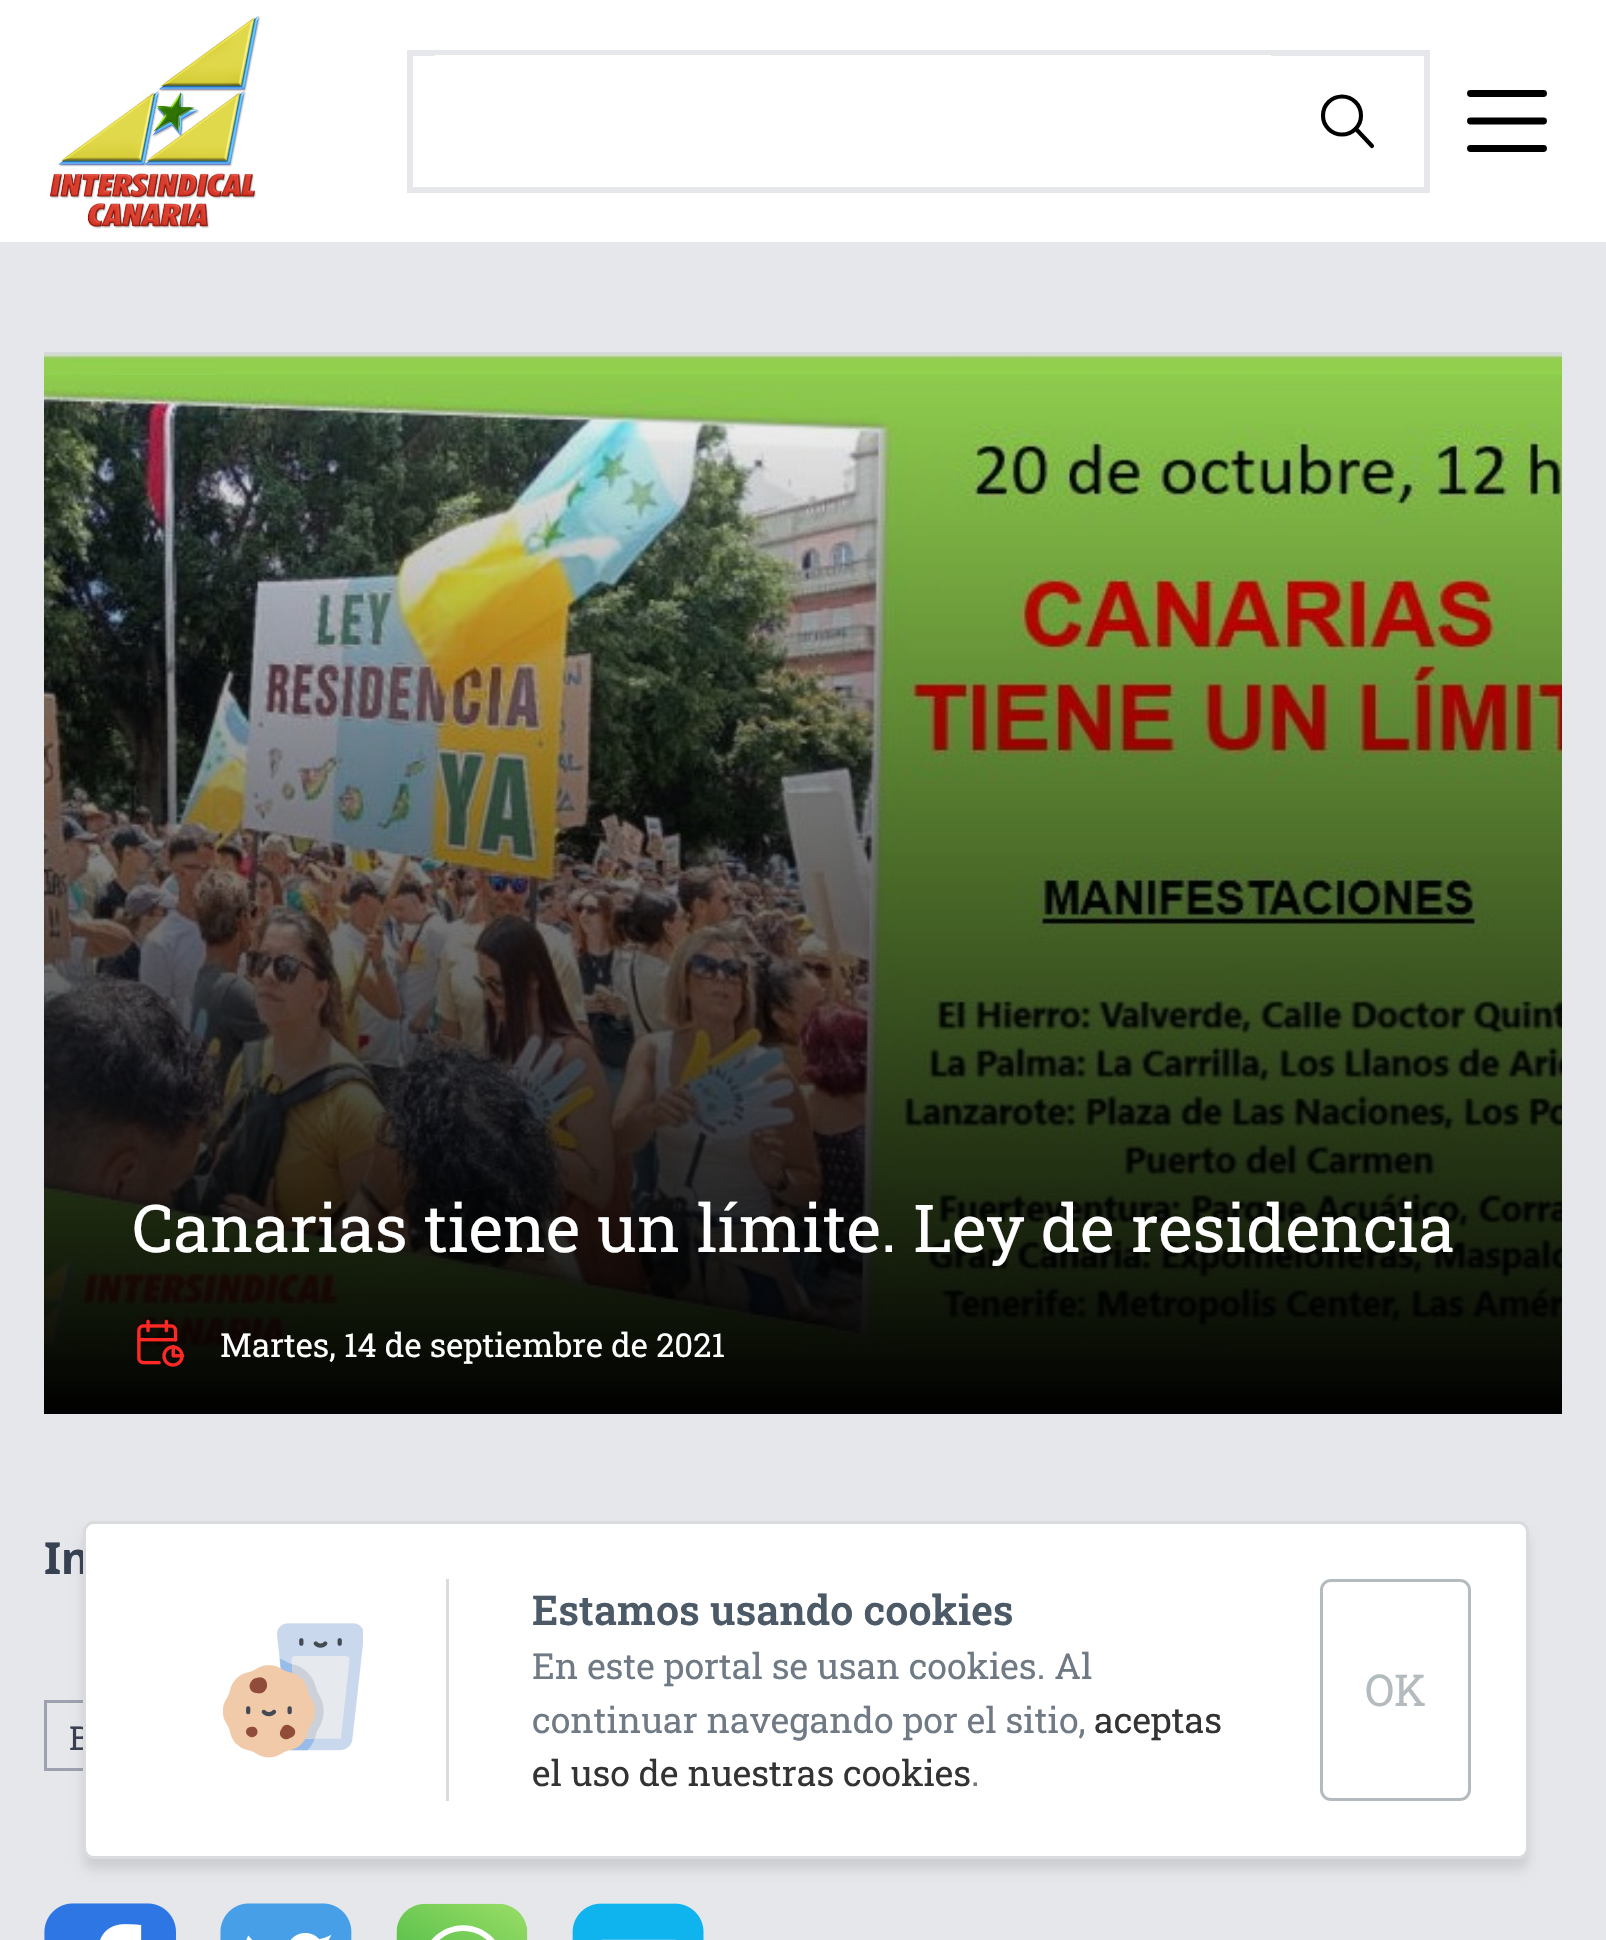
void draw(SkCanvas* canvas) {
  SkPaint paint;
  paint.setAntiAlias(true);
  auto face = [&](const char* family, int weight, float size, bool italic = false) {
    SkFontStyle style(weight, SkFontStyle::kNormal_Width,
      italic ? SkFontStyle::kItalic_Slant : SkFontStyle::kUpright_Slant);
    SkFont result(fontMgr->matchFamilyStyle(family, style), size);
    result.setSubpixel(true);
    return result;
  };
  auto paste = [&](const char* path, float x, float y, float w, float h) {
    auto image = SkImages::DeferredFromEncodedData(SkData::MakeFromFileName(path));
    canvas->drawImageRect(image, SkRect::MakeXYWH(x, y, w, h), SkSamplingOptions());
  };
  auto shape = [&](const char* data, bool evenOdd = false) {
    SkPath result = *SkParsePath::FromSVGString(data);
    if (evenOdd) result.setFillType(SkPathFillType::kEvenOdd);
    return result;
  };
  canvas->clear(0xffe5e7eb);
  paint.setColor(0xffffffff);
  canvas->drawRect(SkRect::MakeXYWH(0, 0, 1606, 242), paint);
  paste("img/1.png", 50, 15, 211, 214);
  paint.setStroke(true);
  paint.setStrokeWidth(6);
  paint.setColor(0xffe5e7eb);
  canvas->drawRect(SkRect::MakeXYWH(410, 53, 1017, 137), paint);
  paint.setStroke(false);
  paint.setColor(0xffffffff);
  canvas->drawRect(SkRect::MakeXYWH(435, 55, 836, 1), paint);
  paint.setStroke(true);
  paint.setStrokeWidth(4.1f);
  paint.setColor(0xff000000);
  canvas->drawCircle(1342, 115.5f, 19, paint);
  paint.setStrokeCap(SkPaint::kRound_Cap);
  paint.setStrokeJoin(SkPaint::kRound_Join);
  canvas->drawPath(shape("M1372 146L1356 129"), paint);
  paint.setStrokeWidth(6.9f);
  canvas->drawPath(shape("M1470.5 93.5H1543.5"), paint);
  canvas->drawPath(shape("M1470.5 121H1543.5"), paint);
  canvas->drawPath(shape("M1470.5 148.5H1543.5"), paint);
  paste("img/2.png", 44, 352, 1518, 1056);
  paint.setStroke(false);
  {
    const SkColor colors[] = {0xff000000, 0x00000000};
    const float stops[] = {0, 1};
    const SkPoint ends[] = {{803, 1414}, {803, 352}};
    paint.setShader(SkGradientShader::MakeLinear(ends, colors, stops, 2, SkTileMode::kClamp));
    paint.setAlpha(255);
  }
  canvas->drawRect(SkRect::MakeXYWH(44, 375, 1518, 1039), paint);
  paste("img/3.png", 137, 1319, 48, 48);
  paint.setStroke(true);
  paint.setStrokeWidth(3);
  paint.setStrokeCap(SkPaint::kButt_Cap);
  paint.setStrokeJoin(SkPaint::kMiter_Join);
  paint.setShader(nullptr);
  paint.setColor(0xff9ca3af);
  canvas->drawRect(SkRect::MakeXYWH(45.5f, 1701.5f, 187, 68), paint);
  paste("img/4.png", 44, 1903, 132, 37);
  paste("img/5.png", 220, 1903, 132, 37);
  paste("img/6.png", 396, 1903, 132, 37);
  paste("img/7.png", 572, 1903, 132, 37);
  paint.setStroke(false);
  paint.setColor(0x1a000000);
  paint.setMaskFilter(SkMaskFilter::MakeBlur(kNormal_SkBlurStyle, 5.5f));
  canvas->drawRoundRect(SkRect::MakeXYWH(83, 1532, 1446, 338), 11, 11, paint);
  paint.setMaskFilter(nullptr);
  auto f0 = face("Roboto Slab", 400, 66);
  paint.setColor(0xffffffff);
  canvas->drawString("Canarias tiene un límite. Ley de residencia", 132, 1252, f0, paint);
  auto f1 = face("Roboto Slab", 400, 33);
  canvas->drawString("Martes, 14 de septiembre de 2021", 220, 1357, f1, paint);
  auto f2 = face("Noto Sans", 700, 44);
  paint.setColor(0xff374151);
  canvas->drawString("In", 44, 1574, f2, paint);
  canvas->drawString("B", 69, 1750, f1, paint);
  paint.setColor(0xffffffff);
  canvas->drawRoundRect(SkRect::MakeXYWH(84.5f, 1522.5f, 1443, 335), 9.5f, 9.5f, paint);
  paint.setStroke(true);
  paint.setColor(0xffd9dbdd);
  canvas->drawRoundRect(SkRect::MakeXYWH(84.5f, 1522.5f, 1443, 335), 9.5f, 9.5f, paint);
  paint.setStroke(false);
  canvas->drawRect(SkRect::MakeXYWH(446, 1579, 3, 222), paint);
  paste("img/8.png", 223, 1623, 140, 135);
  auto f3 = face("Roboto Slab", 600, 41.25f);
  paint.setColor(0xff4c5966);
  canvas->drawString("Estamos usando cookies", 532, 1625, f3, paint);
  auto f4 = face("Roboto Slab", 400, 35.75f);
  paint.setColor(0xff707a85);
  canvas->drawString("En este portal se usan cookies. Al", 532, 1679, f4, paint);
  canvas->drawString("continuar navegando por el sitio,", 532, 1733, f4, paint);
  paint.setColor(0xff333333);
  canvas->drawString("aceptas", 1094, 1733, f4, paint);
  canvas->drawString("el uso de nuestras cookies", 532, 1786, f4, paint);
  paint.setColor(0xff707a85);
  canvas->drawString(".", 971, 1786, f4, paint);
  paint.setStroke(true);
  paint.setColor(0xffb4bbbf);
  canvas->drawRoundRect(SkRect::MakeXYWH(1321.5f, 1580.5f, 148, 219), 9.5f, 9.5f, paint);
  auto f5 = face("Roboto Slab", 400, 44);
  paint.setStroke(false);
  canvas->drawString("OK", 1365, 1706, f5, paint);
}
